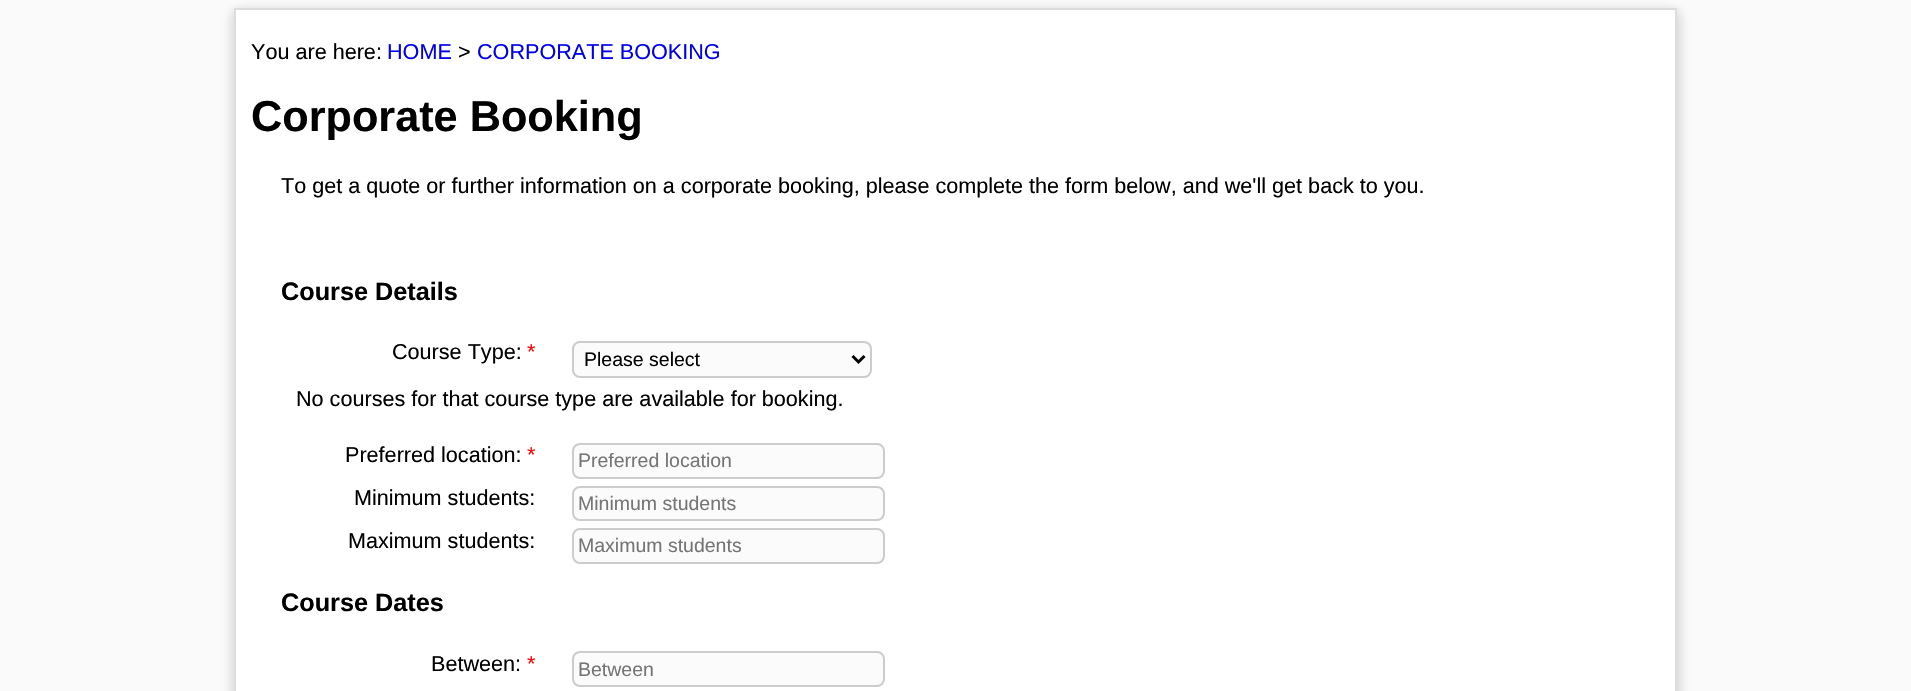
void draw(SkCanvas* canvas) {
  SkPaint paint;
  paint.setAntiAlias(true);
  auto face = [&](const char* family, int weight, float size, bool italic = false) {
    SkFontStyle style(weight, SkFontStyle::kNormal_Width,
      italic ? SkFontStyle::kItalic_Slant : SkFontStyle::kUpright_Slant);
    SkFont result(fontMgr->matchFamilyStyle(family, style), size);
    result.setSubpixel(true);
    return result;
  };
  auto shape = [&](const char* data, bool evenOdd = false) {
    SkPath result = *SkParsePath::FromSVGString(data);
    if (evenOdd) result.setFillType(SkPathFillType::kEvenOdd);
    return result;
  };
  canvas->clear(0xfffafafa);
  paint.setColor(0x33646464);
  paint.setMaskFilter(SkMaskFilter::MakeBlur(kNormal_SkBlurStyle, 4));
  canvas->drawRoundRect(SkRect::MakeXYWH(230, 8, 1452, 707), 12, 12, paint);
  paint.setMaskFilter(nullptr);
  paint.setColor(0xffffffff);
  canvas->drawRect(SkRect::MakeXYWH(235, 9, 1441, 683), paint);
  paint.setStroke(true);
  paint.setStrokeWidth(2);
  paint.setColor(0xffdddddd);
  canvas->drawRect(SkRect::MakeXYWH(235, 9, 1441, 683), paint);
  paint.setStroke(false);
  paint.setColor(0xfffbfbfb);
  canvas->drawRoundRect(SkRect::MakeXYWH(573, 342, 298, 35), 7, 7, paint);
  paint.setStroke(true);
  paint.setColor(0xffcccccc);
  canvas->drawRoundRect(SkRect::MakeXYWH(573, 342, 298, 35), 7, 7, paint);
  paint.setStrokeWidth(3);
  paint.setColor(0xff000000);
  canvas->drawPath(shape("M852.5 356L858.5 362L864.5 356"), paint);
  paint.setStroke(false);
  paint.setColor(0xfffbfbfb);
  canvas->drawRoundRect(SkRect::MakeXYWH(573, 444, 311, 34), 7, 7, paint);
  paint.setStroke(true);
  paint.setStrokeWidth(2);
  paint.setColor(0xffcccccc);
  canvas->drawRoundRect(SkRect::MakeXYWH(573, 444, 311, 34), 7, 7, paint);
  paint.setStroke(false);
  paint.setColor(0xfffbfbfb);
  canvas->drawRoundRect(SkRect::MakeXYWH(573, 487, 311, 33), 7, 7, paint);
  paint.setStroke(true);
  paint.setColor(0xffcccccc);
  canvas->drawRoundRect(SkRect::MakeXYWH(573, 487, 311, 33), 7, 7, paint);
  paint.setStroke(false);
  paint.setColor(0xfffbfbfb);
  canvas->drawRoundRect(SkRect::MakeXYWH(573, 529, 311, 34), 7, 7, paint);
  paint.setStroke(true);
  paint.setColor(0xffcccccc);
  canvas->drawRoundRect(SkRect::MakeXYWH(573, 529, 311, 34), 7, 7, paint);
  paint.setStroke(false);
  paint.setColor(0xfffbfbfb);
  canvas->drawRoundRect(SkRect::MakeXYWH(573, 652, 311, 34), 7, 7, paint);
  paint.setStroke(true);
  paint.setColor(0xffcccccc);
  canvas->drawRoundRect(SkRect::MakeXYWH(573, 652, 311, 34), 7, 7, paint);
  auto f0 = face("Liberation Sans", 400, 21.6f);
  paint.setStroke(false);
  paint.setColor(0xff000000);
  canvas->drawString("You are here:", 251, 59, f0, paint);
  paint.setColor(0xff0000ee);
  canvas->drawString("HOME", 387, 59, f0, paint);
  paint.setColor(0xff000000);
  canvas->drawString(">", 458, 59, f0, paint);
  paint.setColor(0xff0000ee);
  canvas->drawString("CORPORATE BOOKING", 477, 59, f0, paint);
  auto f1 = face("Liberation Sans", 700, 43.25f);
  paint.setColor(0xff000000);
  canvas->drawString("Corporate Booking", 251, 131, f1, paint);
  canvas->drawString("To get a quote or further information on a corporate booking, please complete the form below, and we'll get back to you.", 281, 193, f0, paint);
  auto f2 = face("Liberation Sans", 700, 25.25f);
  canvas->drawString("Course Details", 281, 300, f2, paint);
  canvas->drawString("Course Type:", 392, 359, f0, paint);
  paint.setColor(0xffff0000);
  canvas->drawString("*", 527, 359, f0, paint);
  auto f3 = face("Liberation Sans", 400, 19.5f);
  paint.setColor(0xff000000);
  canvas->drawString("Please select", 584, 366, f3, paint);
  canvas->drawString("No courses for that course type are available for booking.", 296, 406, f0, paint);
  canvas->drawString("Preferred location:", 345, 462, f0, paint);
  paint.setColor(0xffff0000);
  canvas->drawString("*", 527, 462, f0, paint);
  paint.setColor(0xff757575);
  canvas->drawString("Preferred location", 578, 467, f3, paint);
  paint.setColor(0xff000000);
  canvas->drawString("Minimum students:", 354, 505, f0, paint);
  paint.setColor(0xff757575);
  canvas->drawString("Minimum students", 578, 510, f3, paint);
  paint.setColor(0xff000000);
  canvas->drawString("Maximum students:", 348, 548, f0, paint);
  paint.setColor(0xff757575);
  canvas->drawString("Maximum students", 578, 552, f3, paint);
  paint.setColor(0xff000000);
  canvas->drawString("Course Dates", 281, 611, f2, paint);
  canvas->drawString("Between:", 431, 671, f0, paint);
  paint.setColor(0xffff0000);
  canvas->drawString("*", 527, 671, f0, paint);
  paint.setColor(0xff757575);
  canvas->drawString("Between", 578, 676, f3, paint);
}
